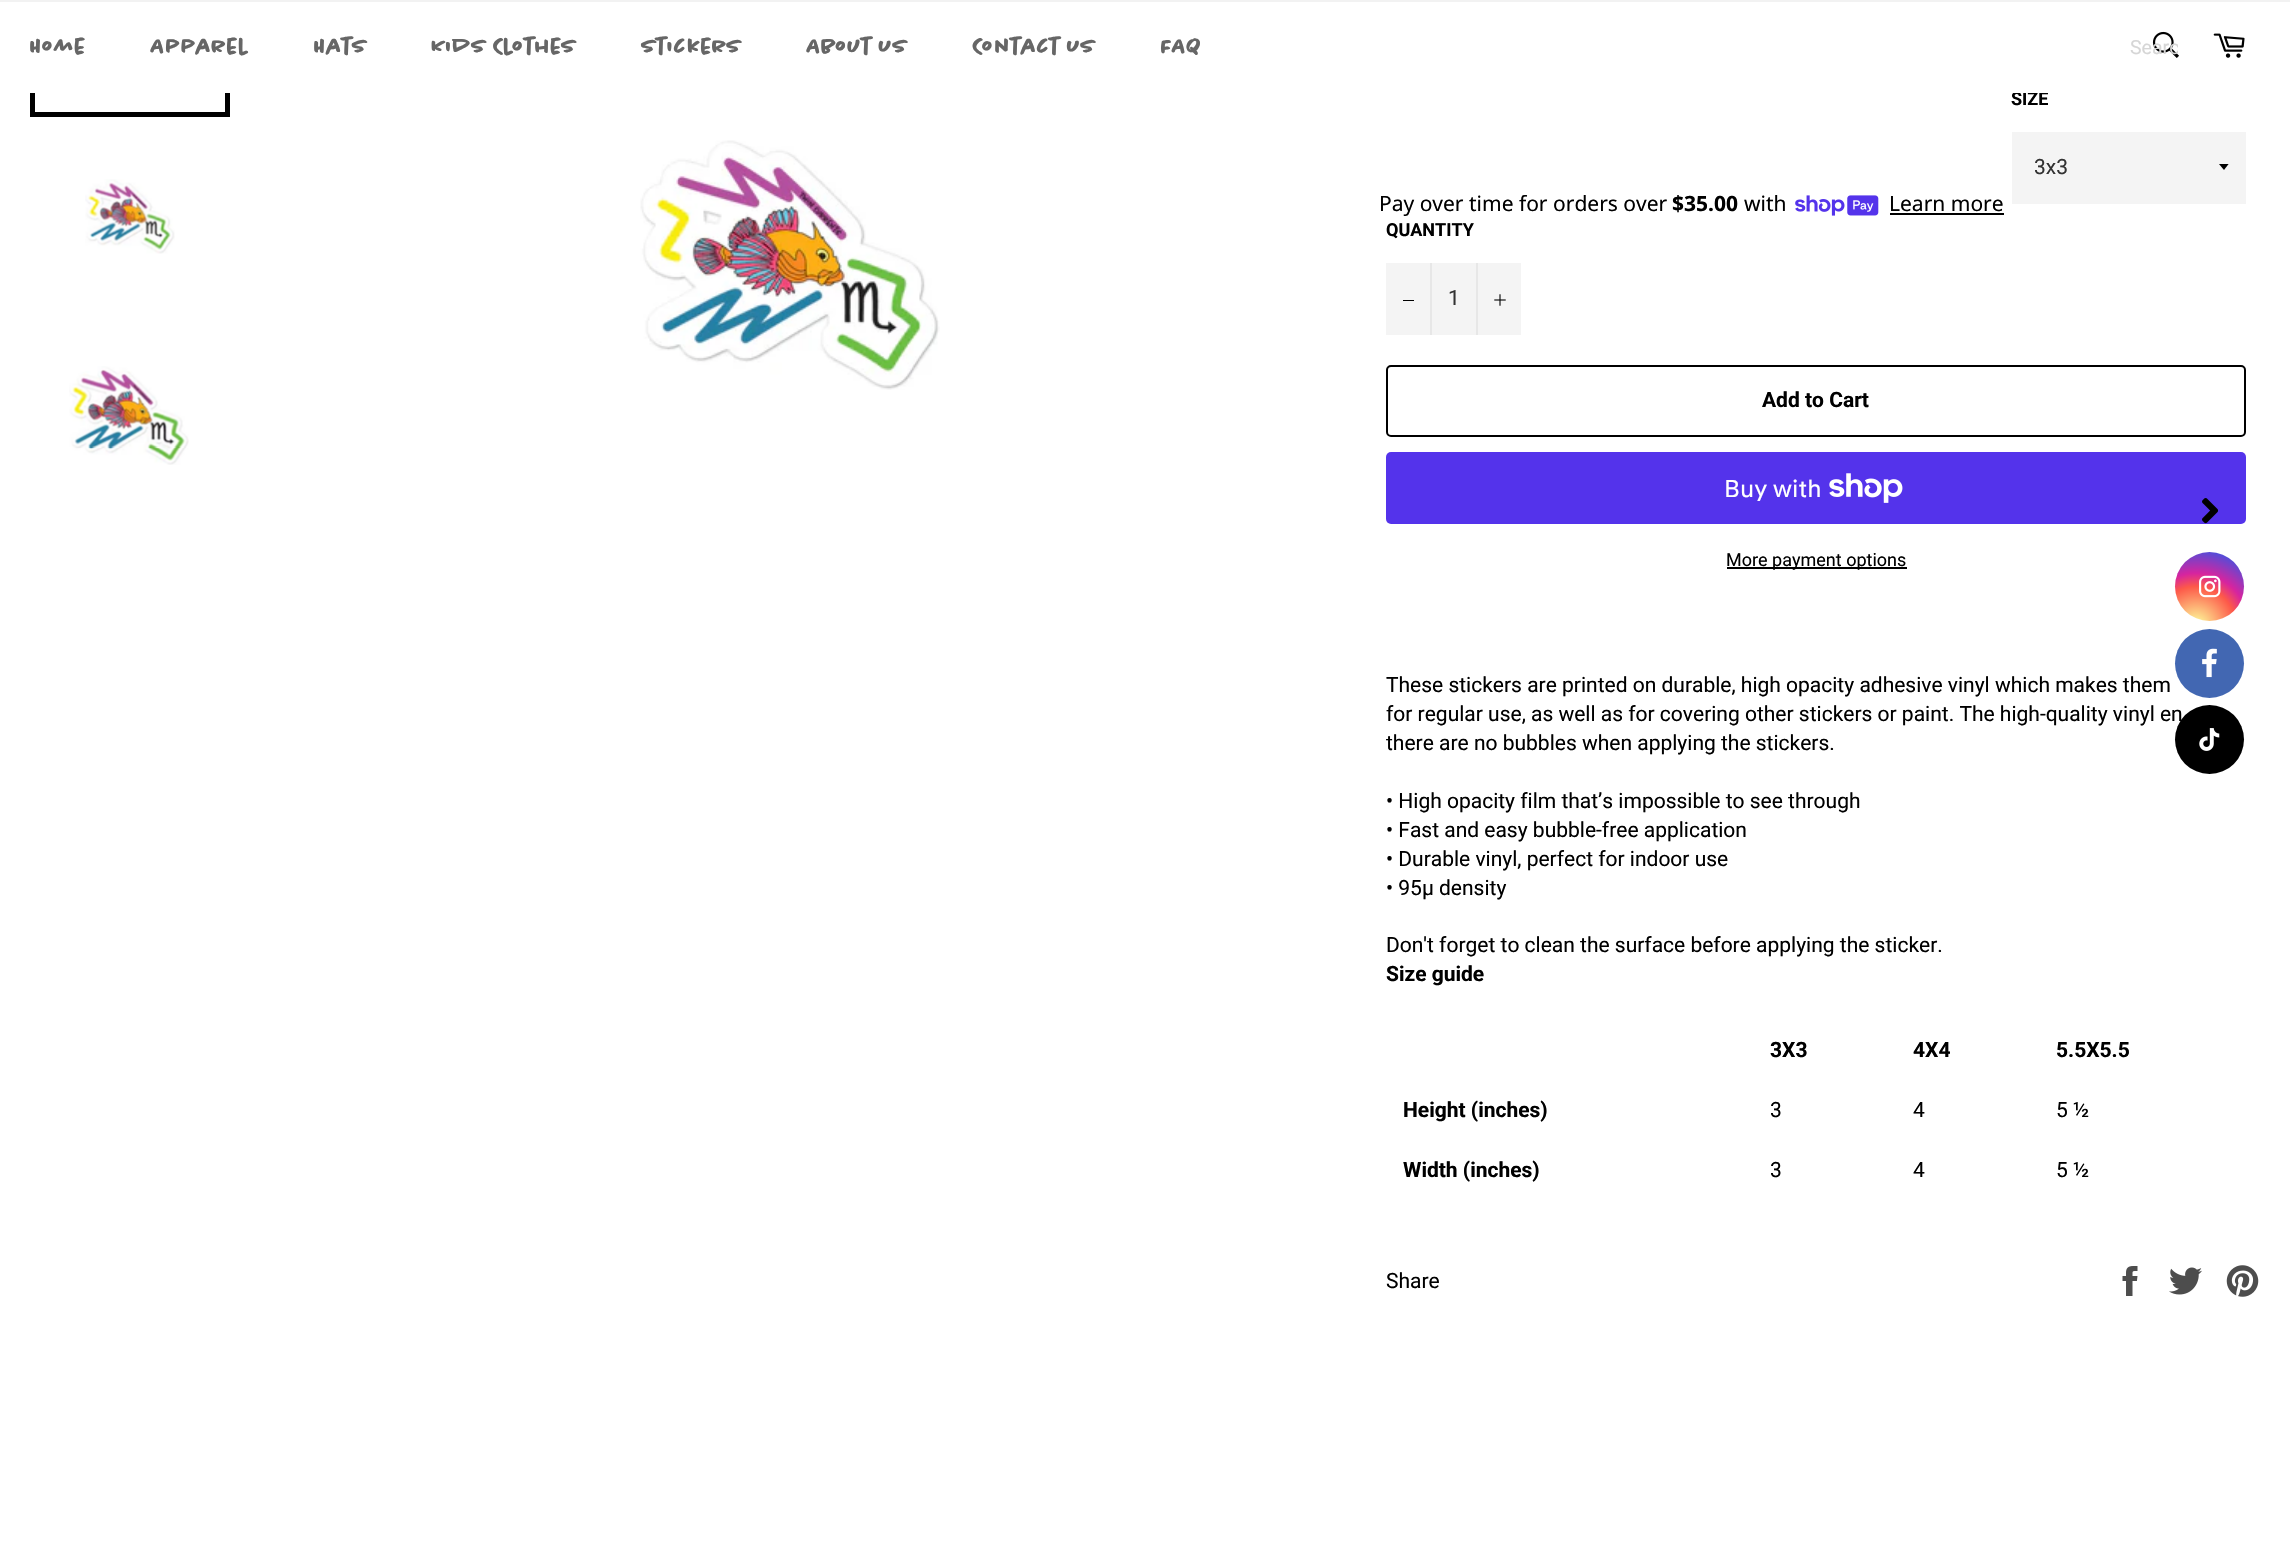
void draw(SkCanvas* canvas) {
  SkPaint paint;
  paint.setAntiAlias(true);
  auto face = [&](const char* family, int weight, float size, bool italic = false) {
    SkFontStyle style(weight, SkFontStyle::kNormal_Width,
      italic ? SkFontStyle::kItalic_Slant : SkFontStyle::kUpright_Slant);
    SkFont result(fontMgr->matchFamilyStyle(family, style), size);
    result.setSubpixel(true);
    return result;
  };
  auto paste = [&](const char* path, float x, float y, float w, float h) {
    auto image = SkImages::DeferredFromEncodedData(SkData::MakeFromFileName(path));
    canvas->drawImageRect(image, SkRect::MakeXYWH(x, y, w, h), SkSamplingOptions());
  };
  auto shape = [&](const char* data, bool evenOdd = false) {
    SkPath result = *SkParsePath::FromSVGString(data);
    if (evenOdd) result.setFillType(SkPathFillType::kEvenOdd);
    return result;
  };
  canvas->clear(0xffffffff);
  paint.setStroke(true);
  paint.setStrokeWidth(5);
  paint.setColor(0xff000000);
  canvas->drawRect(SkRect::MakeXYWH(32.5f, -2.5f, 195, 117), paint);
  paint.setStroke(false);
  paint.setColor(0xfff2f2f2);
  canvas->drawRect(SkRect::MakeXYWH(0, 0, 2290, 2), paint);
  paste("img/1.png", 2152, 31, 27, 27);
  paste("img/2.png", 2213, 33, 32, 25);
  paste("img/3.png", 85, 179, 90, 75);
  paste("img/4.png", 69, 366, 120, 99);
  paste("img/5.png", 640, 140, 300, 250);
  paint.setColor(0xfff4f4f4);
  canvas->drawRect(SkRect::MakeXYWH(2012, 132, 234, 72), paint);
  canvas->save();
  canvas->clipRect(SkRect::MakeXYWH(2219, 164, 12, 7));
  paint.setColor(0xff000000);
  canvas->drawPath(shape("M2218.5 163.5L2224 170L2229 163.5Z"), paint);
  canvas->restore();
  paste("img/6.png", 1795, 195, 84, 21);
  {
    const struct { float x, y, w, h; SkColor color; } items[] = {
      {1890, 213, 114, 2, 0xff000000},
      {1386, 263, 135, 72, 0xfff4f4f4},
      {1430, 263, 2, 72, 0xffe7e7e7},
      {1403, 300, 11, 1, 0xff000000},
      {1476, 263, 2, 72, 0xffe7e7e7},
    };
    for (auto [x, y, w, h, color] : items) {
      paint.setColor(color);
      canvas->drawRect(SkRect::MakeXYWH(x, y, w, h), paint);
    }
  }
  paste("img/7.png", 1494, 294, 12, 12);
  paint.setStroke(true);
  paint.setStrokeWidth(2);
  paint.setColor(0xff000000);
  canvas->drawRoundRect(SkRect::MakeXYWH(1387, 366, 858, 70), 4, 4, paint);
  paint.setStroke(false);
  paint.setColor(0xff5433eb);
  canvas->drawRoundRect(SkRect::MakeXYWH(1386, 452, 860, 72), 5, 5, paint);
  paste("img/8.png", 1829, 473, 74, 30);
  paint.setColor(0xff000000);
  canvas->drawRect(SkRect::MakeXYWH(1727, 567, 180, 2), paint);
  paste("img/9.png", 2122, 1266, 16, 30);
  paste("img/10.png", 2169, 1267, 33, 28);
  paste("img/11.png", 2226, 1265, 33, 32);
  paste("img/12.png", 2202, 498, 17, 26);
  {
    const SkColor colors[] = {0xfffdf497, 0xfffdf497, 0xfffd5949, 0xffd6249f, 0xff285aeb};
    const float stops[] = {0, 0.05f, 0.45f, 0.6f, 0.95f};
    paint.setShader(SkGradientShader::MakeRadial({2196, 626}, 88, colors, stops, 5, SkTileMode::kClamp));
    paint.setAlpha(255);
  }
  canvas->drawCircle(2209.5f, 586.5f, 34.5f, paint);
  paste("img/13.png", 2199, 575, 22, 23);
  paint.setShader(nullptr);
  paint.setColor(0xff4267b2);
  canvas->drawCircle(2209.5f, 663.5f, 34.5f, paint);
  paste("img/14.png", 2202, 648, 15, 30);
  paint.setColor(0xff000000);
  canvas->drawCircle(2209.5f, 739.5f, 34.5f, paint);
  paste("img/15.png", 2199, 728, 21, 23);
  canvas->save();
  canvas->clipRect(SkRect::MakeXYWH(2130, 36, 48, 23));
  auto f0 = face("Roboto", 400, 19.5f);
  paint.setColor(0xffd6d6d6);
  canvas->drawString("Searc", 2130, 54, f0, paint);
  canvas->restore();
  auto f1 = face("Roboto", 700, 18);
  paint.setColor(0xff000000);
  canvas->drawString("SIZE", 2011, 105, f1, paint);
  paint.setColor(0xffffffff);
  canvas->drawRect(SkRect::MakeXYWH(30, 2, 2019, 91), paint);
  auto f2 = face("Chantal", 700, 22.5f);
  paint.setColor(0xff666666);
  {
    const struct { const char* s; float x, y; } items[] = {
      {"FAQ", 1161, 54},
      {"Contact Us", 973, 54},
      {"About Us", 807, 54},
      {"Stickers", 642, 54},
      {"Kids Clothes", 432, 54},
      {"Hats", 314, 54},
      {"Apparel", 151, 54},
      {"Home", 30, 54},
    };
    for (auto [s, x, y] : items) {
      canvas->drawString(s, x, y, f2, paint);
    }
  }
  auto f3 = face("Roboto", 400, 21);
  paint.setColor(0xff333333);
  canvas->drawString("3x3", 2034, 174, f3, paint);
  auto f4 = face("Noto Sans", 400, 21);
  paint.setColor(0xff000000);
  canvas->drawString("Pay over time for orders over", 1379, 211, f4, paint);
  auto f5 = face("Noto Sans", 700, 21);
  canvas->drawString("$35.00", 1672, 211, f5, paint);
  canvas->drawString("with", 1744, 211, f4, paint);
  canvas->drawString("Learn more", 1889, 211, f4, paint);
  canvas->drawString("QUANTITY", 1386, 236, f1, paint);
  paint.setColor(0xff333333);
  canvas->drawString("1", 1448, 305, f3, paint);
  auto f6 = face("Roboto", 700, 21);
  paint.setColor(0xff000000);
  canvas->drawString("Add to Cart", 1762, 407, f6, paint);
  auto f7 = face("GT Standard", 400, 24);
  paint.setColor(0xffffffff);
  canvas->drawString("Buy with", 1724, 497, f7, paint);
  auto f8 = face("Roboto", 400, 18);
  paint.setColor(0xff000000);
  canvas->drawString("More payment options", 1726, 566, f8, paint);
  {
    const struct { const char* s; float x, y; } items[] = {
      {"These stickers are printed on durable, high opacity adhesive vinyl which makes them", 1386, 692},
      {"for regular use, as well as for covering other stickers or paint. The high-quality vinyl en", 1386, 721},
      {"there are no bubbles when applying the stickers.", 1386, 750},
      {"• High opacity film that’s impossible to see through", 1386, 808},
      {"• Fast and easy bubble-free application", 1386, 837},
      {"• Durable vinyl, perfect for indoor use", 1386, 866},
      {"• 95µ density", 1386, 895},
      {"Don't forget to clean the surface before applying the sticker.", 1386, 952},
    };
    for (auto [s, x, y] : items) {
      canvas->drawString(s, x, y, f3, paint);
    }
  }
  {
    const struct { const char* s; float x, y; } items[] = {
      {"Size guide", 1386, 981},
      {"3X3", 1770, 1057},
      {"4X4", 1913, 1057},
      {"5.5X5.5", 2056, 1057},
      {"Height (inches)", 1403, 1117},
    };
    for (auto [s, x, y] : items) {
      canvas->drawString(s, x, y, f6, paint);
    }
  }
  {
    const struct { const char* s; float x, y; } items[] = {
      {"3", 1770, 1117},
      {"4", 1913, 1117},
      {"5 ½", 2056, 1117},
    };
    for (auto [s, x, y] : items) {
      canvas->drawString(s, x, y, f3, paint);
    }
  }
  canvas->drawString("Width (inches)", 1403, 1177, f6, paint);
  {
    const struct { const char* s; float x, y; } items[] = {
      {"3", 1770, 1177},
      {"4", 1913, 1177},
      {"5 ½", 2056, 1177},
      {"Share", 1386, 1288},
    };
    for (auto [s, x, y] : items) {
      canvas->drawString(s, x, y, f3, paint);
    }
  }
}
